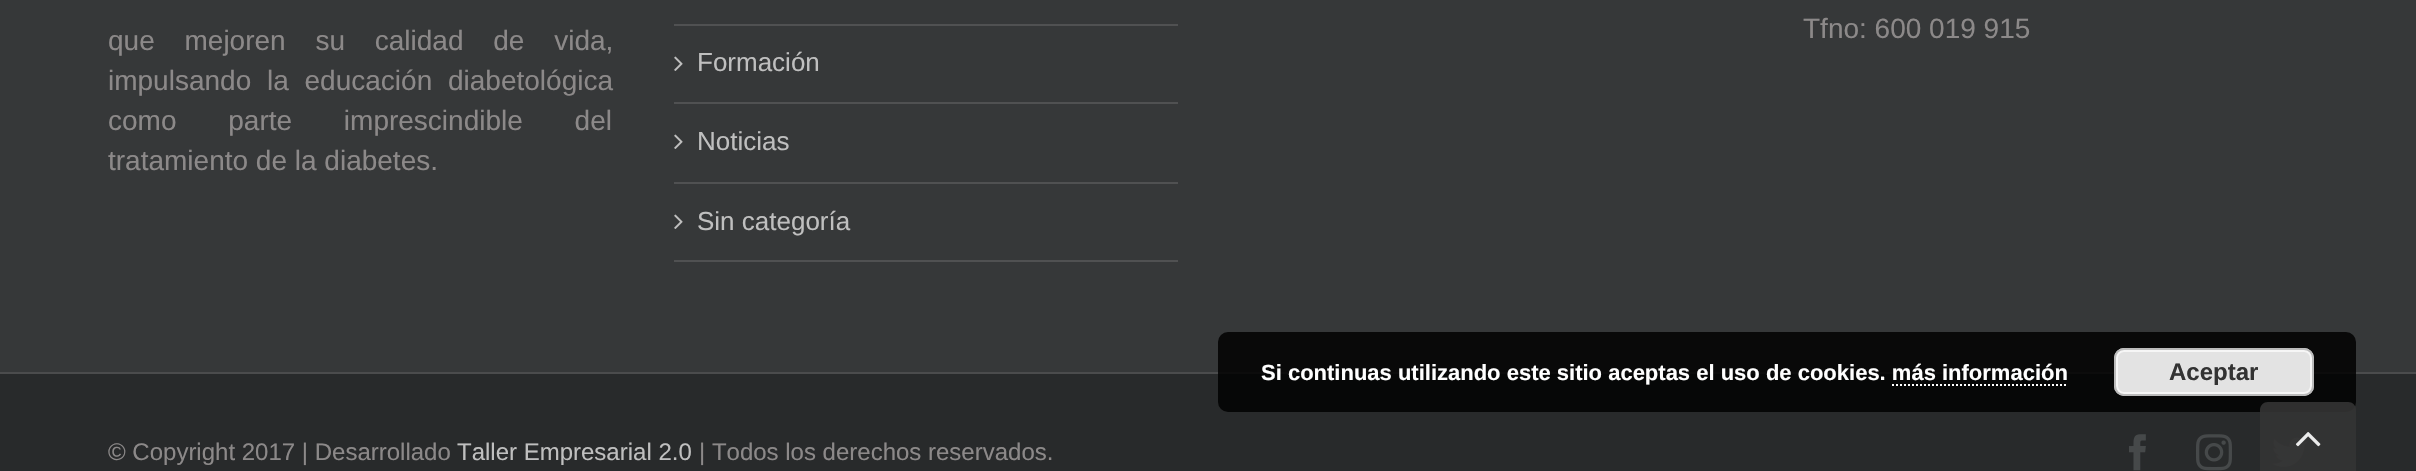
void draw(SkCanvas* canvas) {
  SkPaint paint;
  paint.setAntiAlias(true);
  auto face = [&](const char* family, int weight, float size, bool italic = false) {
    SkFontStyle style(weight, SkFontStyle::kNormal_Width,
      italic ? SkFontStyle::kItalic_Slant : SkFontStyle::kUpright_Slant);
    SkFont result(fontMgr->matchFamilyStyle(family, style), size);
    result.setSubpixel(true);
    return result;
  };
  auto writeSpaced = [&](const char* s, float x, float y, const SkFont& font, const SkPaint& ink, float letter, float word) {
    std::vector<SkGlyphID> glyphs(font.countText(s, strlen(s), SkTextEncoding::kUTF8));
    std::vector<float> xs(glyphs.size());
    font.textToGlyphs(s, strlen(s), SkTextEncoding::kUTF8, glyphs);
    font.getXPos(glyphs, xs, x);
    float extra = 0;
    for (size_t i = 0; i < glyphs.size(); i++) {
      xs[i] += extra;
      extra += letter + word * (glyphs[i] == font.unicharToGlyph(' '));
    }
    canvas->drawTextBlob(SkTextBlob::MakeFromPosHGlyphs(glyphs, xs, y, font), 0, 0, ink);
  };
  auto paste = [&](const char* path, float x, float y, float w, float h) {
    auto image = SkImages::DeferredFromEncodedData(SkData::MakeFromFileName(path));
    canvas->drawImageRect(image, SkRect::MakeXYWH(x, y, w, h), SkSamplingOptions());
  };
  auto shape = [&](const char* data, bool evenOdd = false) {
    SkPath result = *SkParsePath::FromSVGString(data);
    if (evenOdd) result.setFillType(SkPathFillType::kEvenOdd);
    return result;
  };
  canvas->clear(0xff363839);
  paint.setColor(0xff505152);
  canvas->drawRect(SkRect::MakeXYWH(674, 24, 504, 2), paint);
  canvas->drawRect(SkRect::MakeXYWH(674, 102, 504, 2), paint);
  paste("img/1.png", 674, 56, 9, 15);
  canvas->drawRect(SkRect::MakeXYWH(674, 182, 504, 2), paint);
  paste("img/1.png", 674, 134, 9, 15);
  canvas->drawRect(SkRect::MakeXYWH(674, 260, 504, 2), paint);
  paste("img/1.png", 674, 214, 9, 15);
  paint.setColor(0xff282a2b);
  canvas->drawRect(SkRect::MakeXYWH(0, 374, 2416, 97), paint);
  paint.setColor(0xff4b4c4d);
  canvas->drawRect(SkRect::MakeXYWH(0, 372, 2416, 2), paint);
  paste("img/2.png", 2129, 434, 17, 37);
  paste("img/3.png", 2196, 434, 36, 37);
  paste("img/4.png", 2272, 437, 36, 30);
  paint.setColor(0xd9000000);
  canvas->drawRoundRect(SkRect::MakeXYWH(1218, 332, 1138, 80), 10, 10, paint);
  paint.setColor(0xffe3e3e3);
  canvas->drawRoundRect(SkRect::MakeXYWH(2114, 348, 200, 48), 10, 10, paint);
  paint.setStroke(true);
  paint.setStrokeWidth(2);
  paint.setColor(0xfff6f6f6);
  canvas->drawRoundRect(SkRect::MakeXYWH(2117, 351, 194, 42), 7, 7, paint);
  paint.setColor(0xffbbbbbb);
  canvas->drawRoundRect(SkRect::MakeXYWH(2115, 349, 198, 46), 9, 9, paint);
  paint.setColor(0xffffffff);
  paint.setPathEffect(SkDashPathEffect::Make({{2, 2}}, 0));
  canvas->drawPath(shape("M1892 385H2068"), paint);
  paint.setPathEffect(nullptr);
  paint.setStroke(false);
  paint.setColor(0xe6333333);
  canvas->drawPath(shape("M2268 402H2348C2352.5 402 2356 405.5 2356 410V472H2260V410C2260 405.5 2263.5 402 2268 402Z"), paint);
  paste("img/5.png", 2295, 432, 26, 15);
  auto f0 = face("Liberation Sans", 400, 28);
  paint.setColor(0xff8c8989);
  writeSpaced("que mejoren su calidad de vida,", 108, 50, f0, paint, 0, 22);
  writeSpaced("impulsando la educación diabetológica", 108, 90, f0, paint, 0, 8);
  writeSpaced("como parte imprescindible del", 108, 130, f0, paint, 0, 44);
  canvas->drawString("tratamiento de la diabetes.", 108, 170, f0, paint);
  auto f1 = face("Liberation Sans", 400, 26);
  paint.setColor(0xffbfbfbf);
  {
    const struct { const char* s; float x, y; } items[] = {
      {"Formación", 697, 71},
      {"Noticias", 697, 150},
      {"Sin categoría", 697, 230},
    };
    for (auto [s, x, y] : items) {
      canvas->drawString(s, x, y, f1, paint);
    }
  }
  paint.setColor(0xff8c8989);
  canvas->drawString("Tfno: 600 019 915", 1803, 38, f0, paint);
  auto f2 = face("Liberation Sans", 400, 24);
  canvas->drawString("© Copyright 2017 | Desarrollado", 108, 460, f2, paint);
  paint.setColor(0xffbfbfbf);
  canvas->drawString("Taller Empresarial 2.0", 457, 460, f2, paint);
  paint.setColor(0xff8c8989);
  canvas->drawString("| Todos los derechos reservados.", 699, 460, f2, paint);
  auto f3 = face("Liberation Sans", 700, 22);
  paint.setColor(0xffffffff);
  canvas->drawString("Si continuas utilizando este sitio aceptas el uso de cookies. más información", 1261, 380, f3, paint);
  auto f4 = face("Liberation Sans", 700, 24);
  paint.setColor(0xff333333);
  canvas->drawString("Aceptar", 2169, 380, f4, paint);
}
